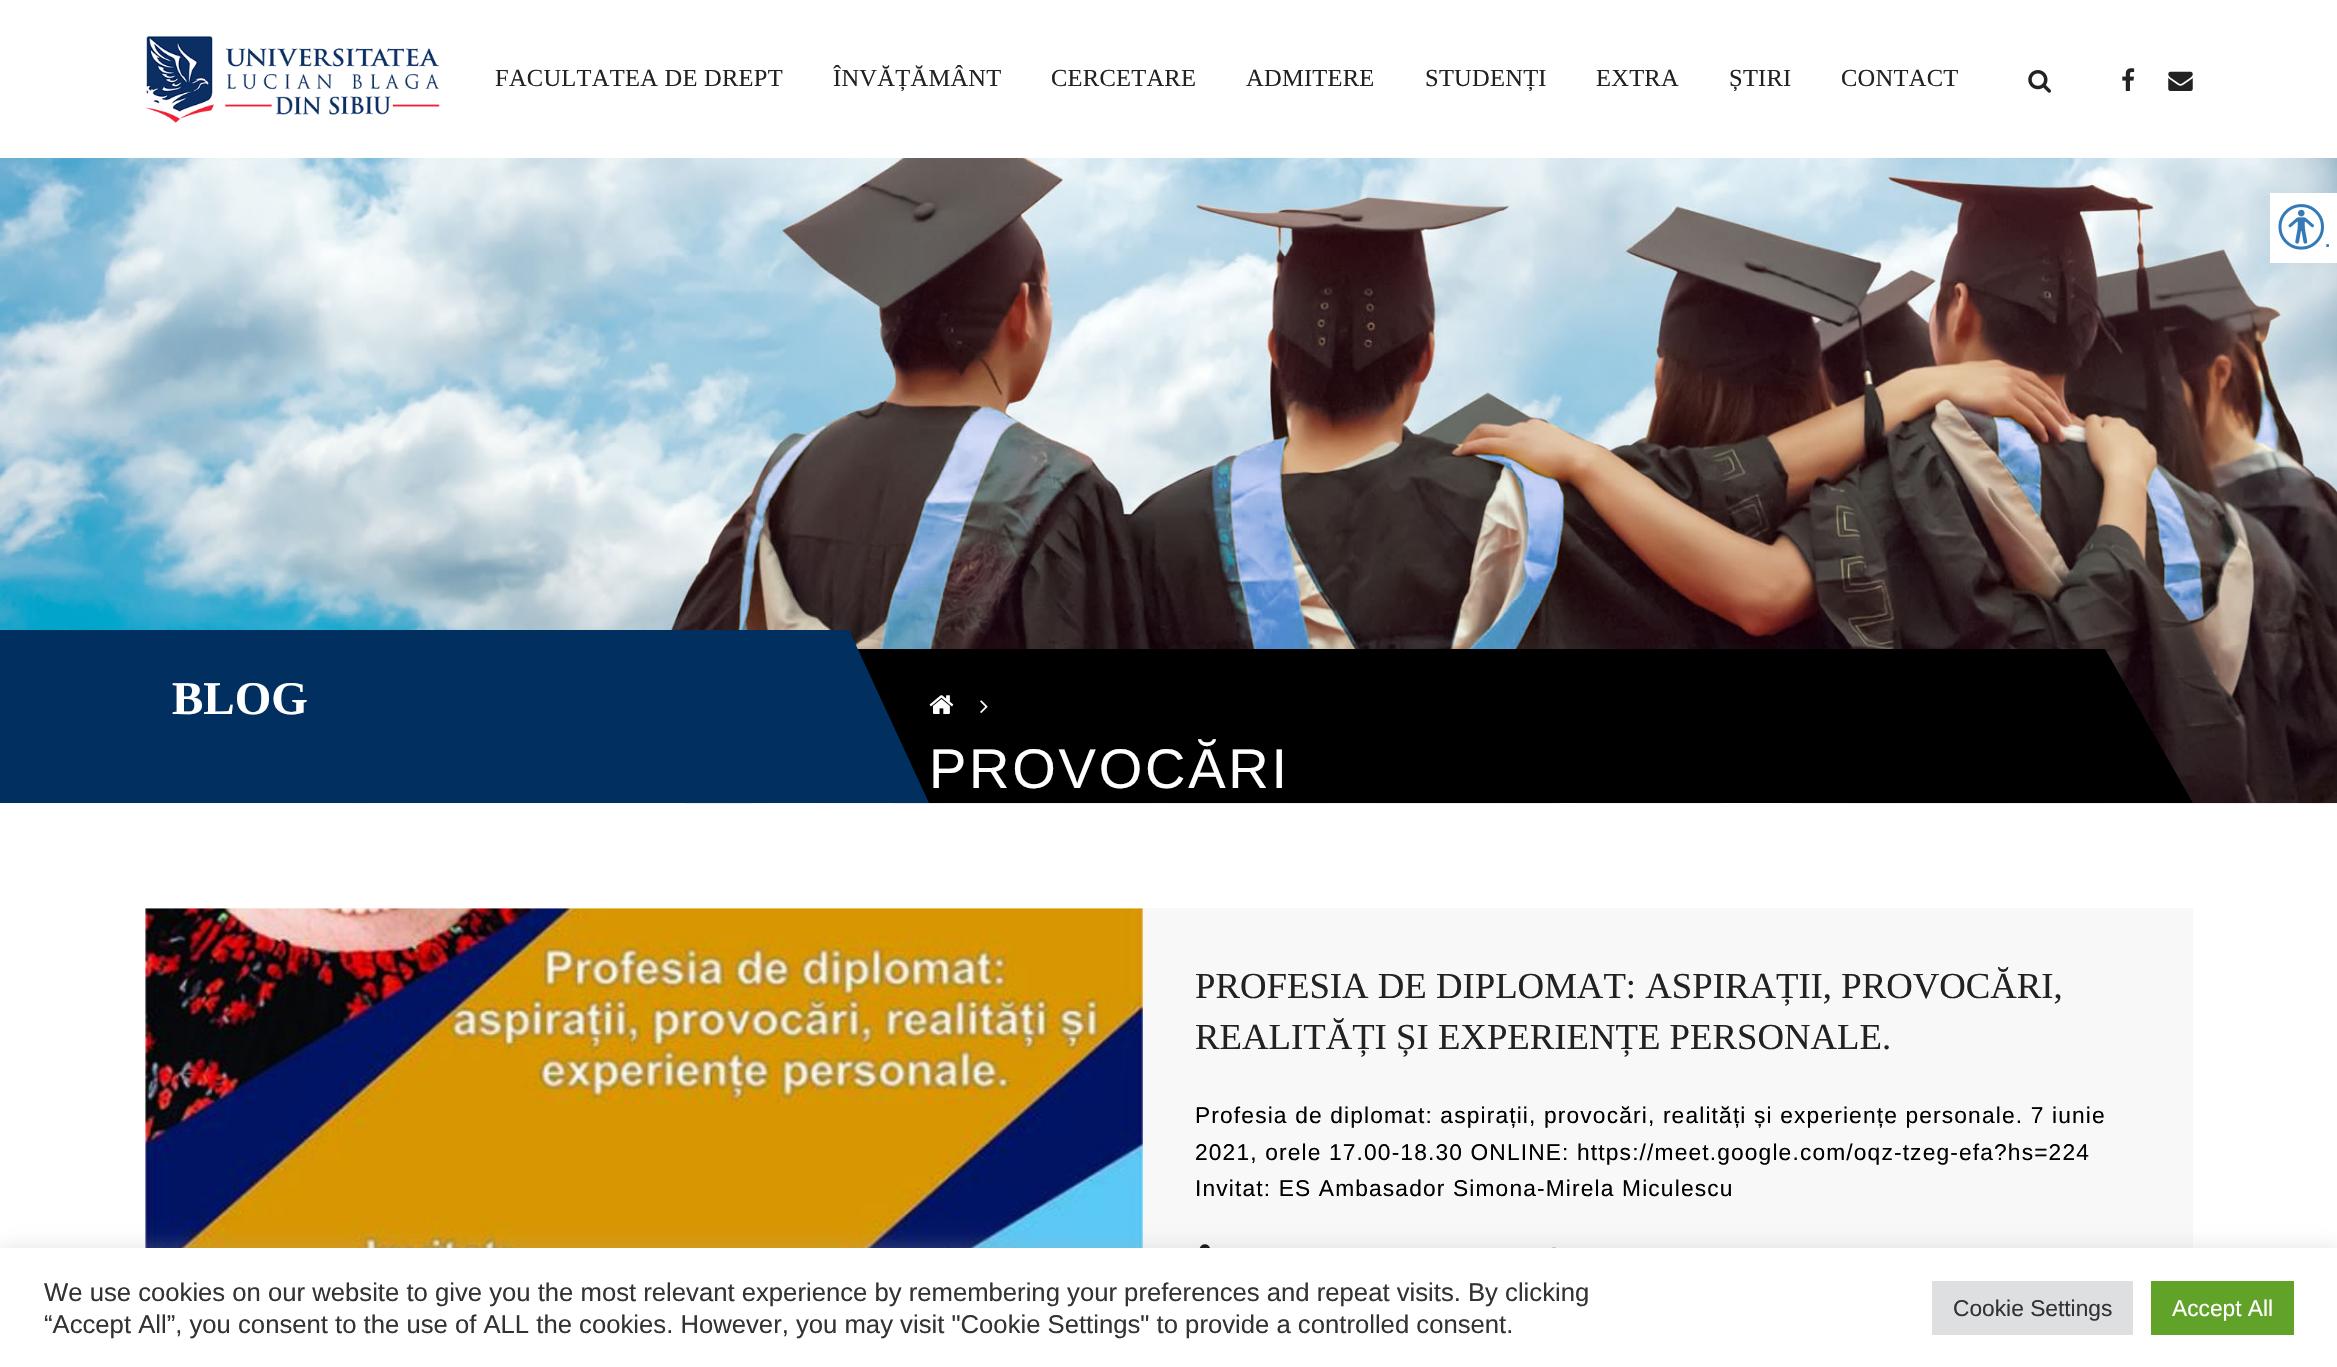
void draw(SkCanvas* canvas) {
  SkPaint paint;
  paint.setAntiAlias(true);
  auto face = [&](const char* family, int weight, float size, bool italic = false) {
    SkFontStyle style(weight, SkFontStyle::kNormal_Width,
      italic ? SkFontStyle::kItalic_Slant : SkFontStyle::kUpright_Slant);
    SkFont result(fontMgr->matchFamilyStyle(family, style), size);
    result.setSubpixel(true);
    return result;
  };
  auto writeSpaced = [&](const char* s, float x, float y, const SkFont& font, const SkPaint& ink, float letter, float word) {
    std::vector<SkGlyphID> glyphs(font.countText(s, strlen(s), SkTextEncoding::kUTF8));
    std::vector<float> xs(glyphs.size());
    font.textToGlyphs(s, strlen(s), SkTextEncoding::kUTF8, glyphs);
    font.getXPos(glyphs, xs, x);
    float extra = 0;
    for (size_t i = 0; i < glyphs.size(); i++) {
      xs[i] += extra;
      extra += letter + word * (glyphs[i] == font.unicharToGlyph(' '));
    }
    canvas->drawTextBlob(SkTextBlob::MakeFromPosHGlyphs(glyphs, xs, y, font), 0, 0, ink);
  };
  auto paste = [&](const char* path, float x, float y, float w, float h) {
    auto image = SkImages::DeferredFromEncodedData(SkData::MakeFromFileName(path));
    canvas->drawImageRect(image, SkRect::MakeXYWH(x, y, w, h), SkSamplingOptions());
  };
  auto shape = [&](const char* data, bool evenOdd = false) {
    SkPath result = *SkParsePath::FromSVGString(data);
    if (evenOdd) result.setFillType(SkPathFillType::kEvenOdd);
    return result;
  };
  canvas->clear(0xffffffff);
  paste("img/1.png", 145, 35, 295, 88);
  paste("img/2.png", 2028, 70, 23, 23);
  paste("img/3.png", 2122, 68, 13, 23);
  paste("img/4.png", 2168, 71, 25, 20);
  paste("img/5.png", 0, 158, 2337, 646);
  paint.setColor(0xff002f60);
  canvas->drawRect(SkRect::MakeXYWH(0, 630, 789, 173), paint);
  paint.setColor(0xff000000);
  canvas->drawRect(SkRect::MakeXYWH(857, 649, 1240, 154), paint);
  paint.setColor(0xff002f60);
  canvas->drawPath(shape("M709 630H849L929 803H789Z"), paint);
  paste("img/6.png", 929, 695, 25, 19);
  paste("img/7.png", 980, 700, 8, 13);
  paint.setColor(0xff000000);
  canvas->drawPath(shape("M2008 649H2105L2193 803H2097Z"), paint);
  paint.setColor(0xfff8f8f8);
  canvas->drawRect(SkRect::MakeXYWH(145, 908, 2048, 340), paint);
  paste("img/8.png", 145, 908, 998, 340);
  paste("img/9.png", 1199, 1244, 11, 4);
  paste("img/10.png", 1552, 1247, 4, 1);
  paint.setColor(0xffffffff);
  canvas->drawRect(SkRect::MakeXYWH(2270, 193, 67, 70), paint);
  paste("img/11.png", 2278, 204, 46, 46);
  paint.setColor(0x4dacabab);
  paint.setMaskFilter(SkMaskFilter::MakeBlur(kNormal_SkBlurStyle, 9));
  canvas->drawRect(SkRect::MakeXYWH(0, 1246, 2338, 121), paint);
  paint.setMaskFilter(nullptr);
  {
    const struct { float x, y, w, h; SkColor color; } items[] = {
      {0, 1248, 2337, 119, 0xffffffff},
      {1932, 1281, 201, 54, 0xffdedfe0},
      {2151, 1281, 143, 54, 0xff61a229},
    };
    for (auto [x, y, w, h, color] : items) {
      paint.setColor(color);
      canvas->drawRect(SkRect::MakeXYWH(x, y, w, h), paint);
    }
  }
  auto f0 = face("Liberation Serif", 400, 24.5f);
  paint.setColor(0xff222222);
  {
    const struct { const char* s; float x, y; } items[] = {
      {"FACULTATEA DE DREPT", 495, 86},
      {"ÎNVĂȚĂMÂNT", 833, 86},
      {"CERCETARE", 1051, 86},
      {"ADMITERE", 1246, 86},
      {"STUDENȚI", 1425, 86},
      {"EXTRA", 1596, 86},
      {"ȘTIRI", 1729, 86},
      {"CONTACT", 1841, 86},
    };
    for (auto [s, x, y] : items) {
      writeSpaced(s, x, y, f0, paint, 0.25f, 0);
    }
  }
  auto f1 = face("Liberation Serif", 700, 47);
  paint.setColor(0xffffffff);
  canvas->drawString("BLOG", 172, 714, f1, paint);
  auto f2 = face("Liberation Sans", 400, 56);
  writeSpaced("PROVOCĂRI", 929, 788, f2, paint, 2.75f, 0);
  auto f3 = face("Liberation Serif", 400, 36.75f);
  paint.setColor(0xff222222);
  canvas->drawString("PROFESIA DE DIPLOMAT: ASPIRAȚII, PROVOCĂRI,", 1195, 998, f3, paint);
  canvas->drawString("REALITĂȚI ȘI EXPERIENȚE PERSONALE.", 1195, 1049, f3, paint);
  auto f4 = face("Liberation Sans", 400, 22.75f);
  paint.setColor(0xff000000);
  {
    const struct { const char* s; float x, y; } items[] = {
      {"Profesia de diplomat: aspirații, provocări, realități și experiențe personale. 7 iunie", 1195, 1123},
      {"2021, orele 17.00-18.30 ONLINE: https://meet.google.com/oqz-tzeg-efa?hs=224", 1195, 1160},
      {"Invitat: ES Ambasador Simona-Mirela Miculescu", 1195, 1196},
    };
    for (auto [s, x, y] : items) {
      writeSpaced(s, x, y, f4, paint, 1.15f, 0);
    }
  }
  auto f5 = face("Liberation Sans", 400, 26);
  paint.setColor(0xff337ab7);
  canvas->drawString(".", 2324, 247, f5, paint);
  auto f6 = face("Liberation Sans", 400, 25.67f);
  paint.setColor(0xff333333);
  canvas->drawString("We use cookies on our website to give you the most relevant experience by remembering your preferences and repeat visits. By clicking", 44, 1301, f6, paint);
  canvas->drawString("“Accept All”, you consent to the use of ALL the cookies. However, you may visit \"Cookie Settings\" to provide a controlled consent.", 44, 1333, f6, paint);
  canvas->drawString("Cookie Settings", 1953, 1316, f4, paint);
  paint.setColor(0xffffffff);
  canvas->drawString("Accept All", 2172, 1316, f4, paint);
}
